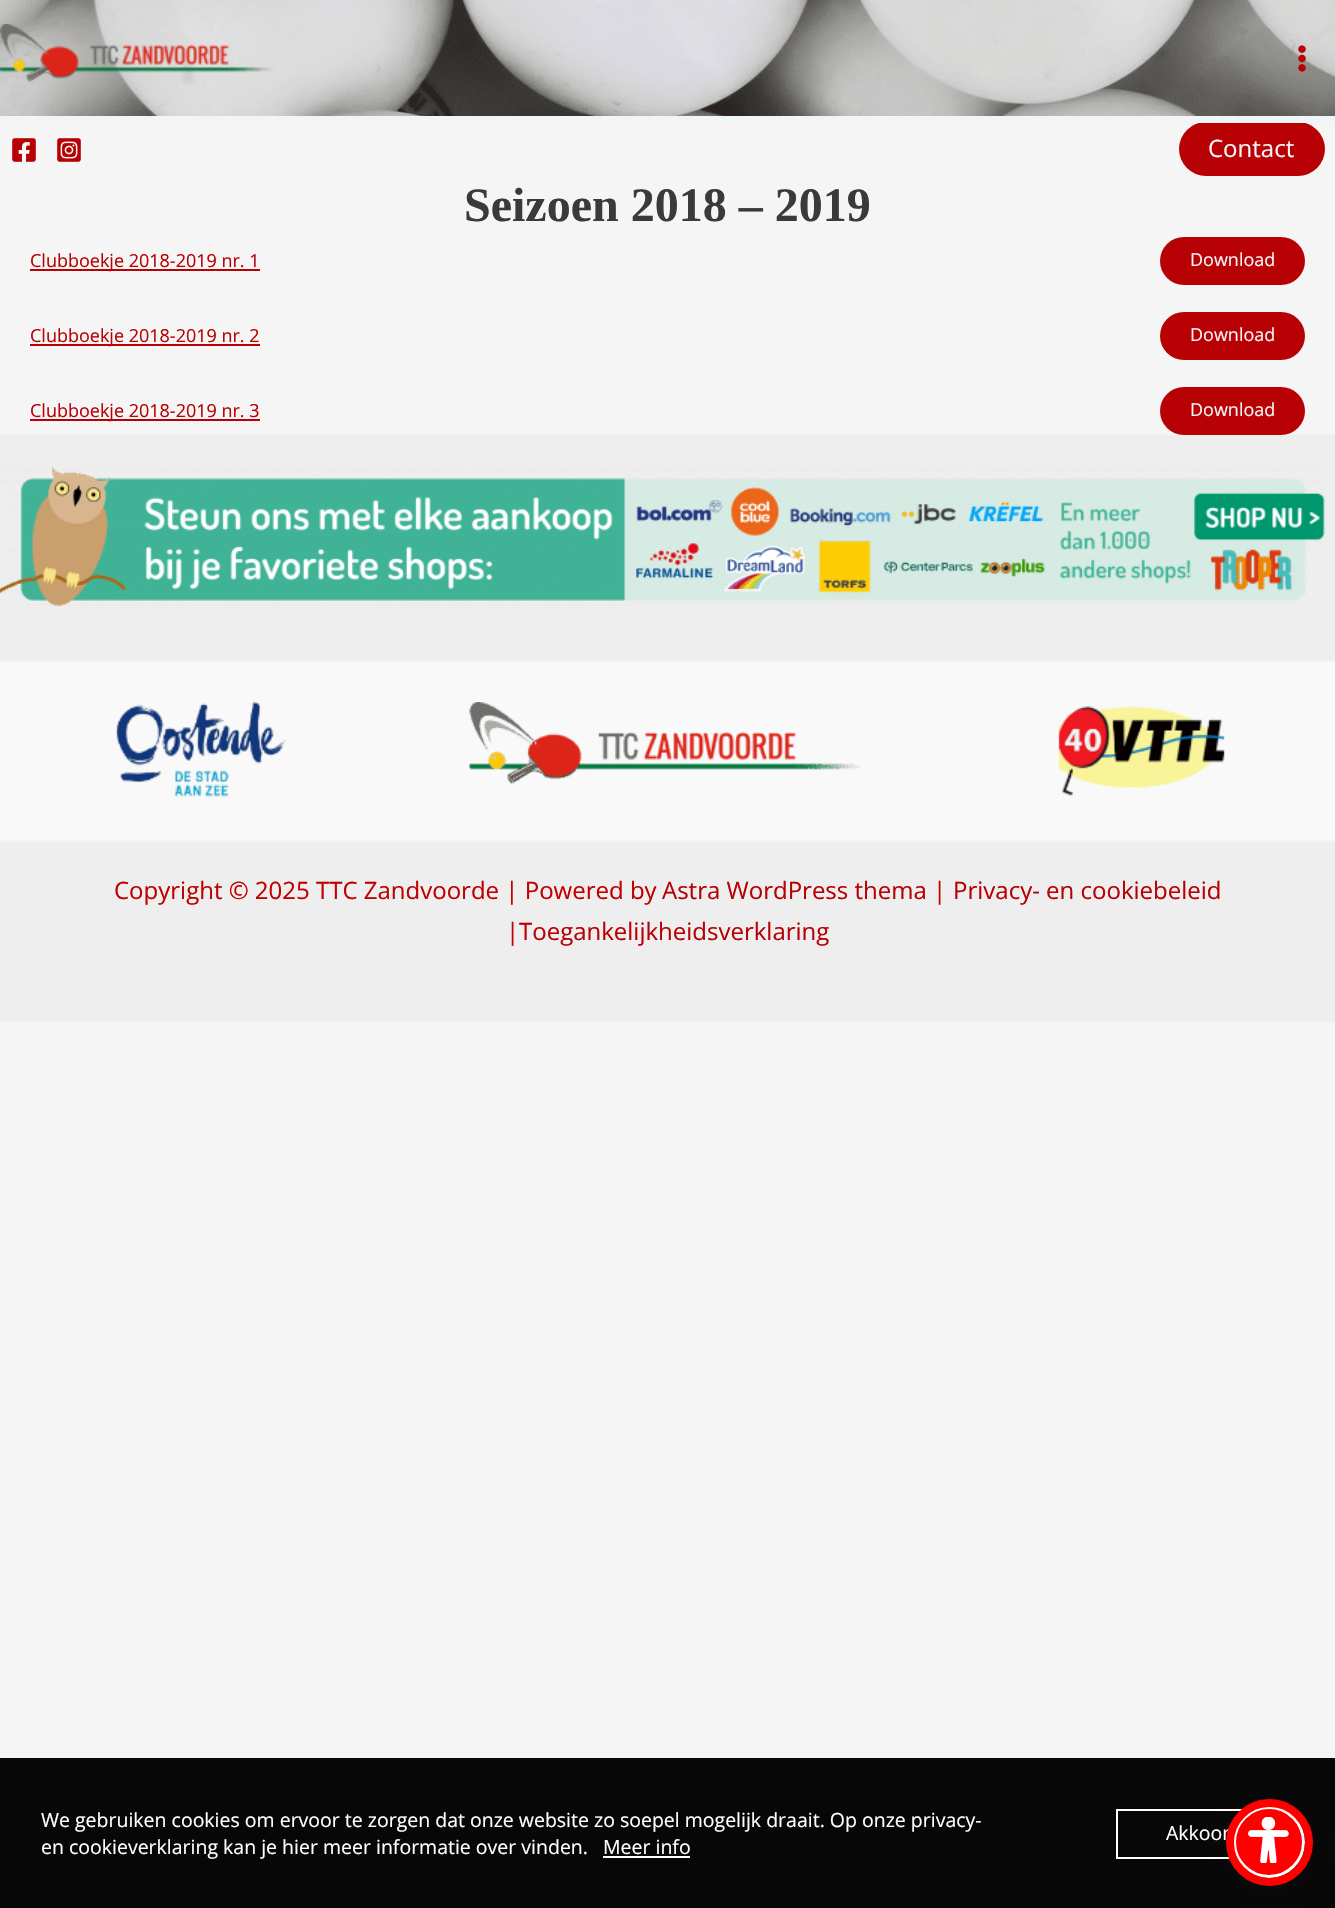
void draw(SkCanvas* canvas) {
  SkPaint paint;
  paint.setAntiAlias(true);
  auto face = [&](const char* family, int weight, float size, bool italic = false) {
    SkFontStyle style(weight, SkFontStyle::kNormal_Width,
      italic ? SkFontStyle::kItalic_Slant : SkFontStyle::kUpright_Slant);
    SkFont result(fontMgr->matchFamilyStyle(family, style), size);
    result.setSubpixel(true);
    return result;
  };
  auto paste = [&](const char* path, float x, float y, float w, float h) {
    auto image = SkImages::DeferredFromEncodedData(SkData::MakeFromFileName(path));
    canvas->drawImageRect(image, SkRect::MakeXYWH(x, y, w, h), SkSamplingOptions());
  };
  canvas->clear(0xfff5f5f5);
  paste("img/1.png", 0, 0, 1335, 116);
  paint.setColor(0xffb70104);
  canvas->drawRoundRect(SkRect::MakeXYWH(1179, 122, 146, 54), 27, 27, paint);
  paint.setColor(0xfff2f5f7);
  canvas->drawRect(SkRect::MakeXYWH(0, 116, 1335, 7), paint);
  paste("img/2.png", 0, 24, 275, 59);
  paste("img/3.png", 1298, 45, 8, 27);
  paste("img/4.png", 12, 138, 24, 24);
  paste("img/5.png", 57, 138, 24, 24);
  paint.setColor(0xffb70104);
  canvas->drawRect(SkRect::MakeXYWH(30, 269, 230, 2), paint);
  canvas->drawRoundRect(SkRect::MakeXYWH(1160, 237, 145, 48), 24, 24, paint);
  canvas->drawRect(SkRect::MakeXYWH(30, 344, 230, 2), paint);
  canvas->drawRoundRect(SkRect::MakeXYWH(1160, 312, 145, 48), 24, 24, paint);
  canvas->drawRect(SkRect::MakeXYWH(30, 419, 230, 2), paint);
  canvas->drawRoundRect(SkRect::MakeXYWH(1160, 387, 145, 48), 24, 24, paint);
  paint.setColor(0xffeeeeee);
  canvas->drawRect(SkRect::MakeXYWH(0, 435, 1335, 225), paint);
  paste("img/6.png", 0, 466, 1325, 141);
  paint.setColor(0xfff9f9f9);
  canvas->drawRect(SkRect::MakeXYWH(0, 662, 1335, 178), paint);
  paint.setColor(0xfff2f5f7);
  canvas->drawRect(SkRect::MakeXYWH(0, 660, 1335, 2), paint);
  paste("img/7.png", 115, 701, 172, 96);
  paste("img/8.png", 469, 702, 392, 83);
  paste("img/9.png", 1058, 706, 167, 91);
  {
    const struct { float x, y, w, h; SkColor color; } items[] = {
      {0, 842, 1335, 180, 0xffeeeeee},
      {0, 840, 1335, 2, 0xfff2f5f7},
      {0, 1758, 1335, 150, 0xff070707},
      {603, 1856, 87, 2, 0xffffffff},
    };
    for (auto [x, y, w, h, color] : items) {
      paint.setColor(color);
      canvas->drawRect(SkRect::MakeXYWH(x, y, w, h), paint);
    }
  }
  paint.setStroke(true);
  paint.setStrokeWidth(2);
  canvas->drawRect(SkRect::MakeXYWH(1117, 1810, 174, 48), paint);
  paint.setStroke(false);
  paint.setColor(0x335d6494);
  paint.setMaskFilter(SkMaskFilter::MakeBlur(kNormal_SkBlurStyle, 3));
  canvas->drawRoundRect(SkRect::MakeXYWH(1233, 1809, 72, 72), 36, 36, paint);
  paint.setMaskFilter(nullptr);
  paint.setColor(0x26252c61);
  paint.setMaskFilter(SkMaskFilter::MakeBlur(kNormal_SkBlurStyle, 11));
  canvas->drawRoundRect(SkRect::MakeXYWH(1233, 1814, 72, 72), 36, 36, paint);
  paint.setMaskFilter(nullptr);
  paint.setColor(0xffff0000);
  canvas->drawCircle(1269, 1842, 34.5f, paint);
  paint.setStroke(true);
  paint.setStrokeWidth(3);
  paint.setColor(0xffffffff);
  canvas->drawCircle(1269, 1842, 34.5f, paint);
  auto f0 = face("Open Sans", 400, 24);
  paint.setStroke(false);
  paint.setColor(0xfff5f5f5);
  canvas->drawString("Contact", 1208, 157, f0, paint);
  auto f1 = face("Liberation Serif", 700, 48);
  paint.setColor(0xff3a3a3a);
  canvas->drawString("Seizoen 2018 – 2019", 464, 221, f1, paint);
  auto f2 = face("Open Sans", 400, 18);
  paint.setColor(0xffb70104);
  canvas->drawString("Clubboekje 2018-2019 nr. 1", 30, 267, f2, paint);
  paint.setColor(0xfff5f5f5);
  canvas->drawString("Download", 1190, 266, f2, paint);
  paint.setColor(0xffb70104);
  canvas->drawString("Clubboekje 2018-2019 nr. 2", 30, 342, f2, paint);
  paint.setColor(0xfff5f5f5);
  canvas->drawString("Download", 1190, 341, f2, paint);
  paint.setColor(0xffb70104);
  canvas->drawString("Clubboekje 2018-2019 nr. 3", 30, 417, f2, paint);
  paint.setColor(0xfff5f5f5);
  canvas->drawString("Download", 1190, 416, f2, paint);
  paint.setColor(0xffc10000);
  canvas->drawString("Copyright © 2025 TTC Zandvoorde | Powered by", 114, 899, f0, paint);
  paint.setColor(0xffb70104);
  canvas->drawString("Astra WordPress thema", 662, 899, f0, paint);
  paint.setColor(0xffc10000);
  canvas->drawString("|", 933, 899, f0, paint);
  paint.setColor(0xffb70104);
  canvas->drawString("Privacy- en cookiebeleid", 953, 899, f0, paint);
  paint.setColor(0xffc10000);
  canvas->drawString("|", 506, 940, f0, paint);
  paint.setColor(0xffb70104);
  canvas->drawString("Toegankelijkheidsverklaring", 519, 940, f0, paint);
  auto f3 = face("Open Sans", 400, 19.5f);
  paint.setColor(0xffffffff);
  {
    const struct { const char* s; float x, y; } items[] = {
      {"We gebruiken cookies om ervoor te zorgen dat onze website zo soepel mogelijk draait. Op onze privacy-", 41, 1827},
      {"en cookieverklaring kan je hier meer informatie over vinden.", 41, 1854},
      {"Meer info", 603, 1854},
      {"Akkoor", 1166, 1840},
    };
    for (auto [s, x, y] : items) {
      canvas->drawString(s, x, y, f3, paint);
    }
  }
  paint.setStroke(true);
  paint.setStrokeWidth(8);
  paint.setColor(0xffff0000);
  canvas->drawCircle(1269.5f, 1842.5f, 39.5f, paint);
  paste("img/10.png", 1248, 1817, 41, 46);
}
